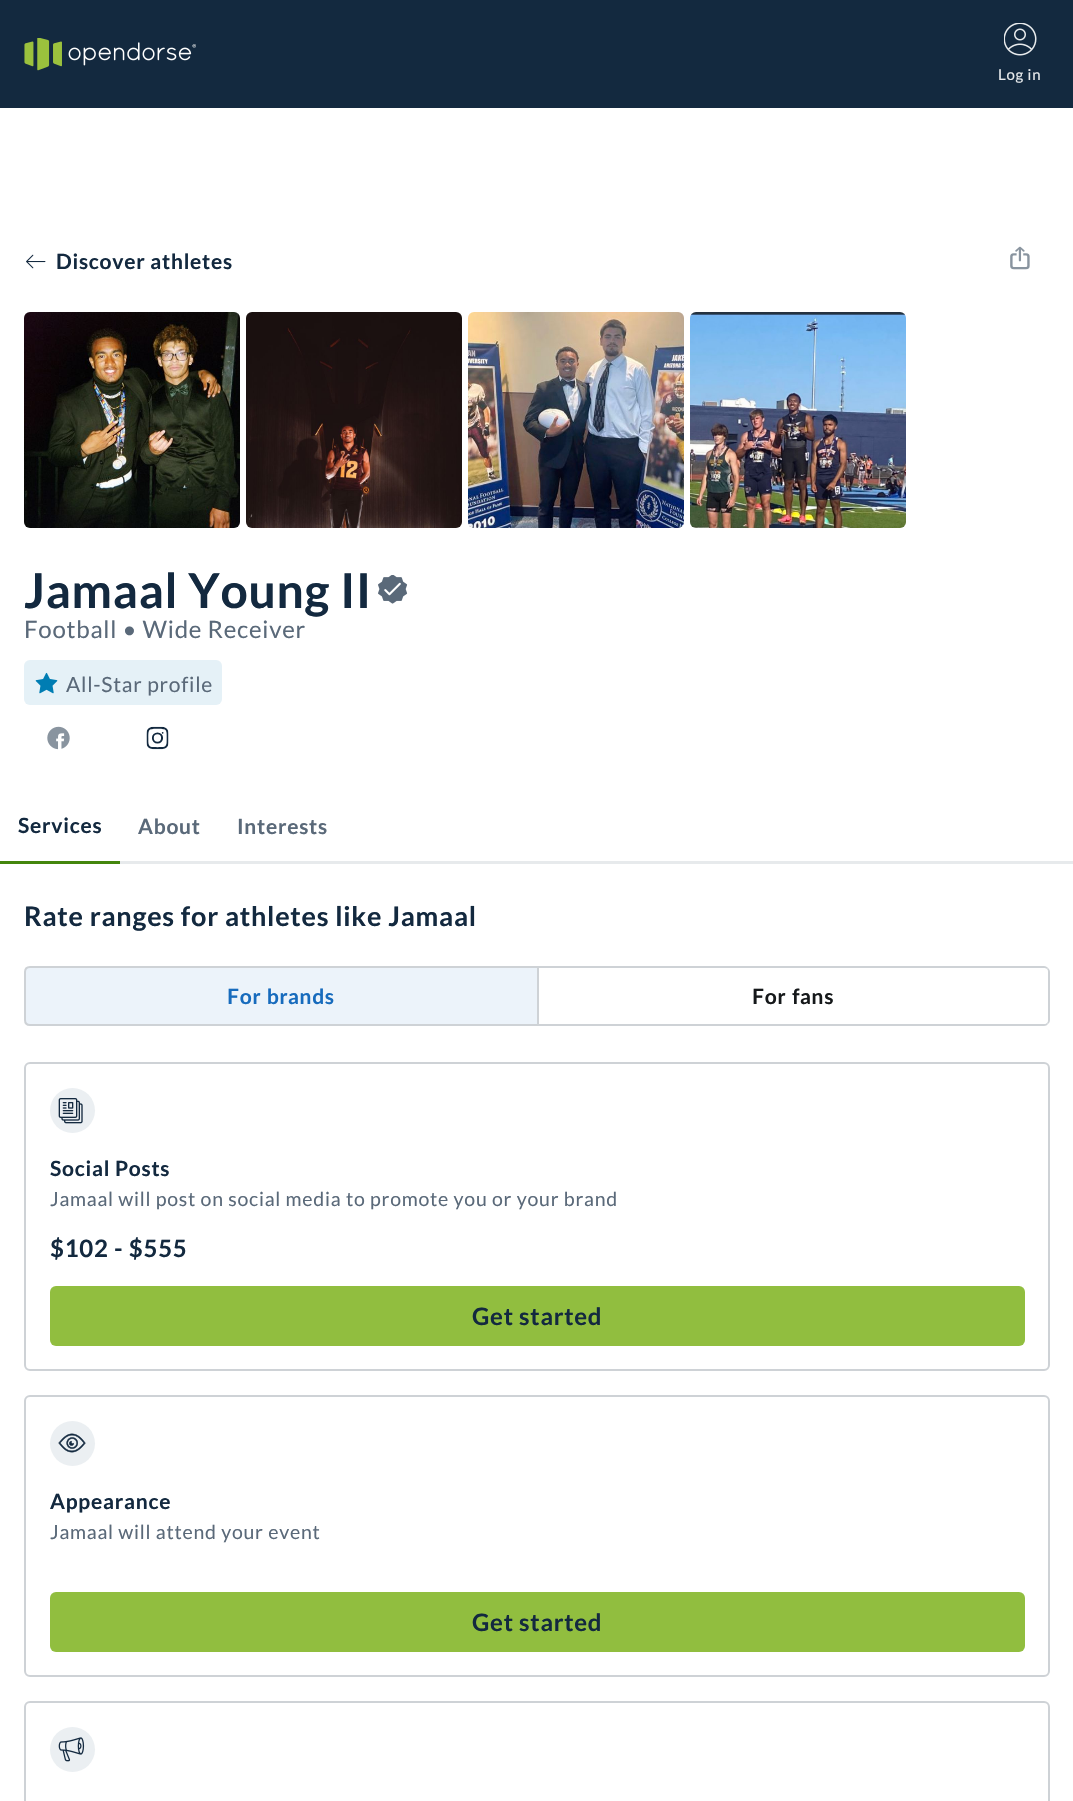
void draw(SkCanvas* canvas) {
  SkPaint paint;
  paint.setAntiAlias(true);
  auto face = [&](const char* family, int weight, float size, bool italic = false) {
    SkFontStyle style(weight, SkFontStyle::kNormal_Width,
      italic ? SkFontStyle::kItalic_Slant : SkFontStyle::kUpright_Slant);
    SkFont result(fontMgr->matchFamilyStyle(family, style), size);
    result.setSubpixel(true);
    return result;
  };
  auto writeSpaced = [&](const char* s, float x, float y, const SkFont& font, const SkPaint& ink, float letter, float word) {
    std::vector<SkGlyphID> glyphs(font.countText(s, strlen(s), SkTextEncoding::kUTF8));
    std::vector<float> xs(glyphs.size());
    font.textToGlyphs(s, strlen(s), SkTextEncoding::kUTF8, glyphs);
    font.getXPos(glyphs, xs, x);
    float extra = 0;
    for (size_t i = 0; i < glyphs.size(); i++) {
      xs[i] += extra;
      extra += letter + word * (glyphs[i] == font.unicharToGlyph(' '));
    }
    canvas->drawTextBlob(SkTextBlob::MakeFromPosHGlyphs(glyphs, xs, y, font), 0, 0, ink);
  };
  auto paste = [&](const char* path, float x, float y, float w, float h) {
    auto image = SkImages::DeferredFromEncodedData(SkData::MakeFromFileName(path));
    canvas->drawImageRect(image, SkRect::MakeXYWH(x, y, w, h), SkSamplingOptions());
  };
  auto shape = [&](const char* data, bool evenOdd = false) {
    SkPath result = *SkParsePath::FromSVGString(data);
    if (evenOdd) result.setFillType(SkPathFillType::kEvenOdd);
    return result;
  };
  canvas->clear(0xffffffff);
  paint.setColor(0xff13293f);
  canvas->drawRect(SkRect::MakeXYWH(0, 0, 1073, 108), paint);
  paste("img/1.png", 24, 38, 172, 33);
  paste("img/2.png", 1004, 23, 33, 33);
  paste("img/3.png", 26, 254, 20, 15);
  paste("img/4.png", 1010, 246, 20, 24);
  paste("img/5.png", 24, 312, 216, 216);
  paste("img/6.png", 246, 312, 216, 216);
  paste("img/7.png", 468, 312, 216, 216);
  paste("img/8.png", 690, 312, 216, 216);
  paste("img/9.png", 378, 575, 30, 29);
  paint.setColor(0xffe5f1f7);
  canvas->drawRoundRect(SkRect::MakeXYWH(24, 660, 198, 45), 6, 6, paint);
  paste("img/10.png", 35, 672, 23, 22);
  paste("img/11.png", 47, 726, 23, 24);
  paste("img/12.png", 146, 726, 23, 24);
  paint.setColor(0xffe7eaec);
  canvas->drawRect(SkRect::MakeXYWH(120, 861, 953, 3), paint);
  paint.setColor(0xff44860d);
  canvas->drawRect(SkRect::MakeXYWH(0, 861, 120, 3), paint);
  paint.setColor(0xffecf3fa);
  canvas->drawPath(shape("M30 967H538V1025H30C27 1025 25 1023 25 1020V972C25 969 27 967 30 967Z"), paint);
  paint.setStroke(true);
  paint.setStrokeWidth(2);
  paint.setColor(0xffced2d6);
  canvas->drawPath(shape("M30 967H538V1025H30C27 1025 25 1023 25 1020V972C25 969 27 967 30 967Z"), paint);
  paint.setStroke(false);
  canvas->drawPath(shape("M537 966L539 968H1044C1045 968 1046 968 1047 969L1048 968C1047 967 1046 966 1044 966Z"), paint);
  canvas->drawPath(shape("M1050 1020V972C1050 970 1049 969 1048 968L1047 969C1048 970 1048 971 1048 972V1020C1048 1021 1048 1022 1047 1023L1048 1024C1049 1023 1050 1022 1050 1020Z"), paint);
  canvas->drawPath(shape("M1044 1026C1046 1026 1047 1025 1048 1024L1047 1023C1046 1024 1045 1024 1044 1024H539L537 1026Z"), paint);
  paint.setStroke(true);
  canvas->drawRoundRect(SkRect::MakeXYWH(25, 1063, 1024, 307), 5, 5, paint);
  paint.setStroke(false);
  paint.setColor(0xffebeff2);
  canvas->drawCircle(72.5f, 1110.5f, 22.5f, paint);
  paste("img/13.png", 58, 1098, 25, 26);
  paint.setColor(0xff91be3f);
  canvas->drawRoundRect(SkRect::MakeXYWH(50, 1286, 975, 60), 6, 6, paint);
  paint.setStroke(true);
  paint.setColor(0xffced2d6);
  canvas->drawRoundRect(SkRect::MakeXYWH(25, 1396, 1024, 280), 5, 5, paint);
  paint.setStroke(false);
  paint.setColor(0xffebeff2);
  canvas->drawCircle(72.5f, 1443.5f, 22.5f, paint);
  paste("img/14.png", 58, 1433, 28, 20);
  paint.setColor(0xff91be3f);
  canvas->drawRoundRect(SkRect::MakeXYWH(50, 1592, 975, 60), 6, 6, paint);
  paint.setStroke(true);
  paint.setColor(0xffced2d6);
  canvas->drawRoundRect(SkRect::MakeXYWH(25, 1702, 1024, 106), 5, 5, paint);
  paint.setStroke(false);
  paint.setColor(0xffebeff2);
  canvas->drawCircle(72.5f, 1749.5f, 22.5f, paint);
  paste("img/15.png", 58, 1737, 27, 25);
  auto f0 = face("Lato", 400, 15);
  paint.setColor(0xffe7eaec);
  writeSpaced("Log in", 998, 80, f0, paint, 0.75f, 0);
  auto f1 = face("Lato", 700, 21);
  paint.setColor(0xff13293f);
  writeSpaced("Discover athletes", 56, 269, f1, paint, 0.75f, 0);
  auto f2 = face("Lato", 700, 48);
  writeSpaced("Jamaal Young II", 24, 608, f2, paint, 0.75f, 0);
  auto f3 = face("Lato", 400, 24);
  paint.setColor(0xff5a6979);
  writeSpaced("Football • Wide Receiver", 24, 638, f3, paint, 0.75f, 0);
  auto f4 = face("Lato", 400, 21);
  writeSpaced("All-Star profile", 66, 692, f4, paint, 0.75f, 0);
  paint.setColor(0xff13293f);
  writeSpaced("Services", 18, 833, f1, paint, 0.75f, 0);
  paint.setColor(0xff5a6979);
  writeSpaced("About", 138, 834, f1, paint, 0.75f, 0);
  writeSpaced("Interests", 237, 834, f1, paint, 0.75f, 0);
  auto f5 = face("Lato", 700, 27);
  paint.setColor(0xff13293f);
  writeSpaced("Rate ranges for athletes like Jamaal", 24, 926, f5, paint, 0.75f, 0);
  auto f6 = face("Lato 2", 700, 21);
  paint.setColor(0xff176bbd);
  writeSpaced("For brands", 227, 1004, f6, paint, 0.75f, 0);
  paint.setColor(0xff15181a);
  writeSpaced("For fans", 752, 1004, f6, paint, 0.75f, 0);
  paint.setColor(0xff13293f);
  writeSpaced("Social Posts", 50, 1176, f1, paint, 0.75f, 0);
  auto f7 = face("Lato", 400, 19.5f);
  paint.setColor(0xff5a6979);
  writeSpaced("Jamaal will post on social media to promote you or your brand", 50, 1206, f7, paint, 0.75f, 0);
  auto f8 = face("Lato", 700, 24);
  paint.setColor(0xff13293f);
  writeSpaced("$102 - $555", 50, 1257, f8, paint, 0.75f, 0);
  writeSpaced("Get started", 472, 1325, f8, paint, 0.75f, 0);
  writeSpaced("Appearance", 50, 1509, f1, paint, 0.75f, 0);
  paint.setColor(0xff5a6979);
  writeSpaced("Jamaal will attend your event", 50, 1539, f7, paint, 0.75f, 0);
  paint.setColor(0xff13293f);
  writeSpaced("Get started", 472, 1631, f8, paint, 0.75f, 0);
}
